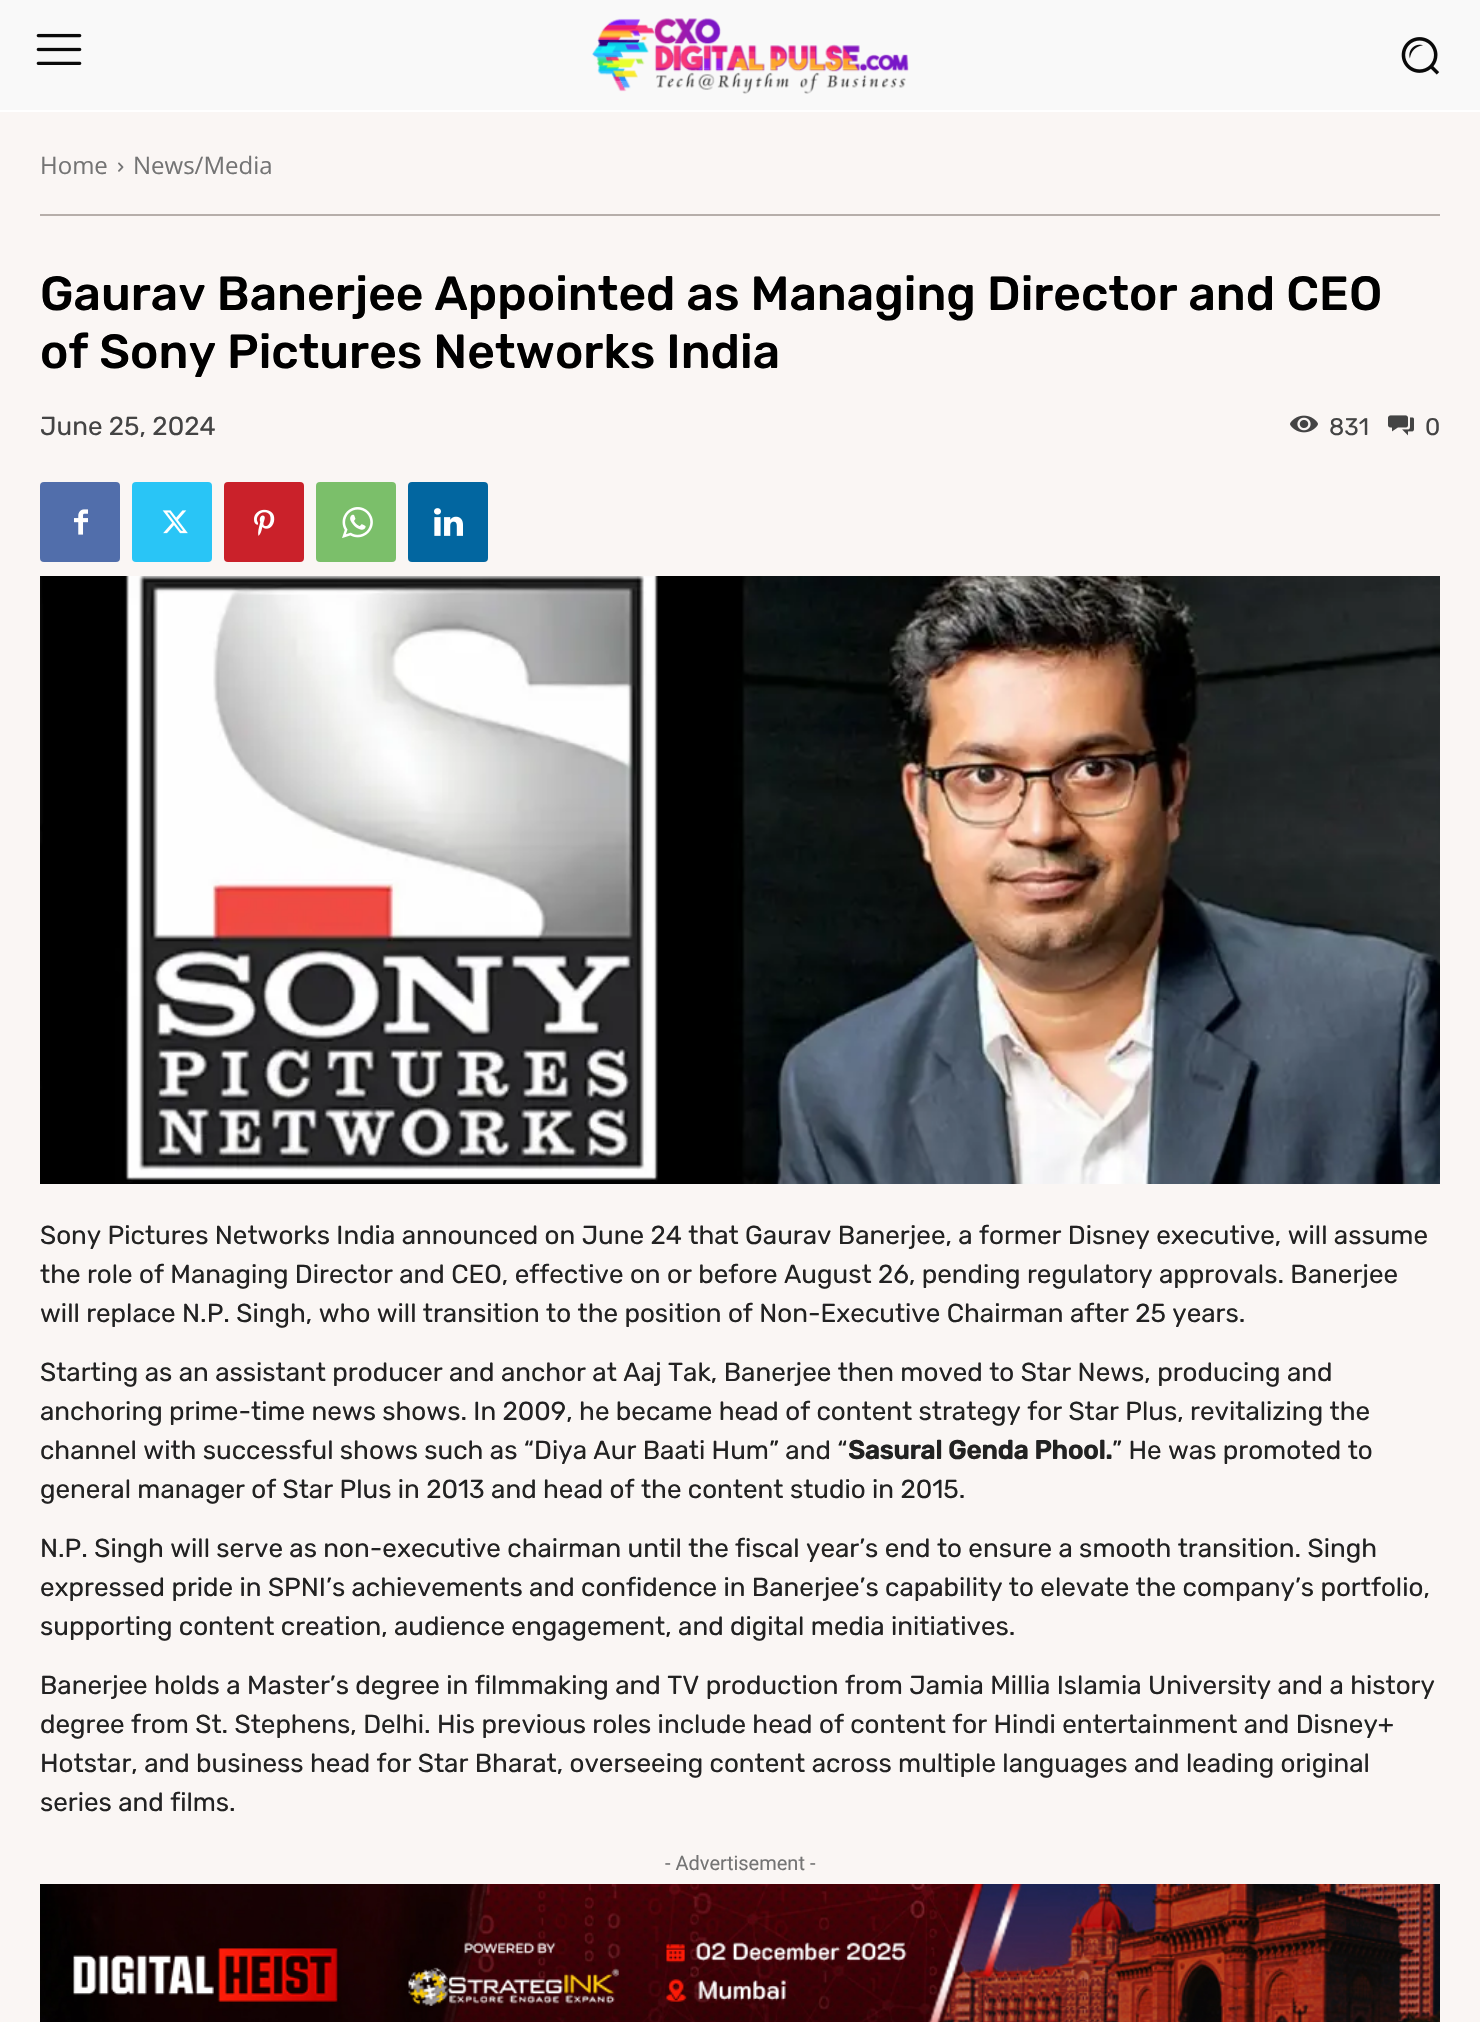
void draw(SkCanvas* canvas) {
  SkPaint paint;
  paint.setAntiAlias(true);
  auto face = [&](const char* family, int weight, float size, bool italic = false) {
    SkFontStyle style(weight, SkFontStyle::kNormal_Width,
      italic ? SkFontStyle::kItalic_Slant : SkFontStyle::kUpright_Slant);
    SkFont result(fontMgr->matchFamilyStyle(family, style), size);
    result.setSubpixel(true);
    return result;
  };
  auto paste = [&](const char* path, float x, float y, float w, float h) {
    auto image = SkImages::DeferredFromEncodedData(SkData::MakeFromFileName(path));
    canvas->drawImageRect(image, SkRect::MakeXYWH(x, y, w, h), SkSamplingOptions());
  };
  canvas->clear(0xfffaf6f4);
  paint.setColor(0xfff9f9f9);
  canvas->drawRect(SkRect::MakeXYWH(0, 0, 1480, 110), paint);
  paste("img/1.png", 36, 33, 46, 32);
  paste("img/2.png", 592, 18, 317, 76);
  paste("img/3.png", 1401, 37, 39, 38);
  paint.setColor(0xffffffff);
  canvas->drawRect(SkRect::MakeXYWH(0, 110, 1480, 2), paint);
  paint.setColor(0xffb6aeaa);
  canvas->drawRect(SkRect::MakeXYWH(40, 214, 1400, 2), paint);
  paste("img/4.png", 118, 162, 6, 10);
  paste("img/5.png", 1290, 415, 28, 18);
  paste("img/6.png", 1388, 415, 26, 21);
  paint.setColor(0xff516eab);
  canvas->drawRoundRect(SkRect::MakeXYWH(40, 482, 80, 80), 4, 4, paint);
  paste("img/7.png", 74, 509, 14, 26);
  paint.setColor(0xff29c5f6);
  canvas->drawRoundRect(SkRect::MakeXYWH(132, 482, 80, 80), 4, 4, paint);
  paste("img/8.png", 162, 510, 26, 24);
  paint.setColor(0xffca212a);
  canvas->drawRoundRect(SkRect::MakeXYWH(224, 482, 80, 80), 4, 4, paint);
  paste("img/9.png", 254, 509, 21, 27);
  paint.setColor(0xff7bbf6a);
  canvas->drawRoundRect(SkRect::MakeXYWH(316, 482, 80, 80), 4, 4, paint);
  paste("img/10.png", 342, 507, 31, 31);
  paint.setColor(0xff0266a0);
  canvas->drawRoundRect(SkRect::MakeXYWH(408, 482, 80, 80), 4, 4, paint);
  paste("img/11.png", 434, 508, 29, 28);
  paste("img/12.png", 40, 576, 1400, 608);
  paste("img/13.png", 40, 1884, 1400, 138);
  auto f0 = face("Open Sans", 400, 24);
  paint.setColor(0xff747474);
  canvas->drawString("Home", 40, 174, f0, paint);
  canvas->drawString("News/Media", 133, 174, f0, paint);
  auto f1 = face("Rubik", 500, 48);
  paint.setColor(0xff000000);
  canvas->drawString("Gaurav Banerjee Appointed as Managing Director and CEO", 40, 310, f1, paint);
  canvas->drawString("of Sony Pictures Networks India", 40, 368, f1, paint);
  auto f2 = face("Rubik", 400, 26);
  paint.setColor(0xff444444);
  canvas->drawString("June 25, 2024", 40, 435, f2, paint);
  auto f3 = face("Rubik", 400, 24);
  canvas->drawString("831", 1329, 435, f3, paint);
  canvas->drawString("0", 1425, 435, f3, paint);
  paint.setColor(0xff222222);
  {
    const struct { const char* s; float x, y; } items[] = {
      {"Sony Pictures Networks India announced on June 24 that Gaurav Banerjee, a former Disney executive, will assume", 40, 1244},
      {"the role of Managing Director and CEO, effective on or before August 26, pending regulatory approvals. Banerjee", 40, 1283},
      {"will replace N.P. Singh, who will transition to the position of Non-Executive Chairman after 25 years.", 40, 1322},
      {"Starting as an assistant producer and anchor at Aaj Tak, Banerjee then moved to Star News, producing and", 40, 1381},
      {"anchoring prime-time news shows. In 2009, he became head of content strategy for Star Plus, revitalizing the", 40, 1420},
      {"channel with successful shows such as “Diya Aur Baati Hum” and “", 40, 1459},
    };
    for (auto [s, x, y] : items) {
      canvas->drawString(s, x, y, f2, paint);
    }
  }
  auto f4 = face("Rubik", 700, 26);
  canvas->drawString("Sasural Genda Phool.", 848, 1459, f4, paint);
  {
    const struct { const char* s; float x, y; } items[] = {
      {"” He was promoted to", 1112, 1459},
      {"general manager of Star Plus in 2013 and head of the content studio in 2015.", 40, 1498},
      {"N.P. Singh will serve as non-executive chairman until the fiscal year’s end to ensure a smooth transition. Singh", 40, 1557},
      {"expressed pride in SPNI’s achievements and confidence in Banerjee’s capability to elevate the company’s portfolio,", 40, 1596},
      {"supporting content creation, audience engagement, and digital media initiatives.", 40, 1635},
      {"Banerjee holds a Master’s degree in filmmaking and TV production from Jamia Millia Islamia University and a history", 40, 1694},
      {"degree from St. Stephens, Delhi. His previous roles include head of content for Hindi entertainment and Disney+", 40, 1733},
      {"Hotstar, and business head for Star Bharat, overseeing content across multiple languages and leading original", 40, 1772},
      {"series and films.", 40, 1811},
    };
    for (auto [s, x, y] : items) {
      canvas->drawString(s, x, y, f2, paint);
    }
  }
  auto f5 = face("Roboto", 400, 20);
  paint.setColor(0xff747474);
  canvas->drawString("- Advertisement -", 665, 1870, f5, paint);
}
